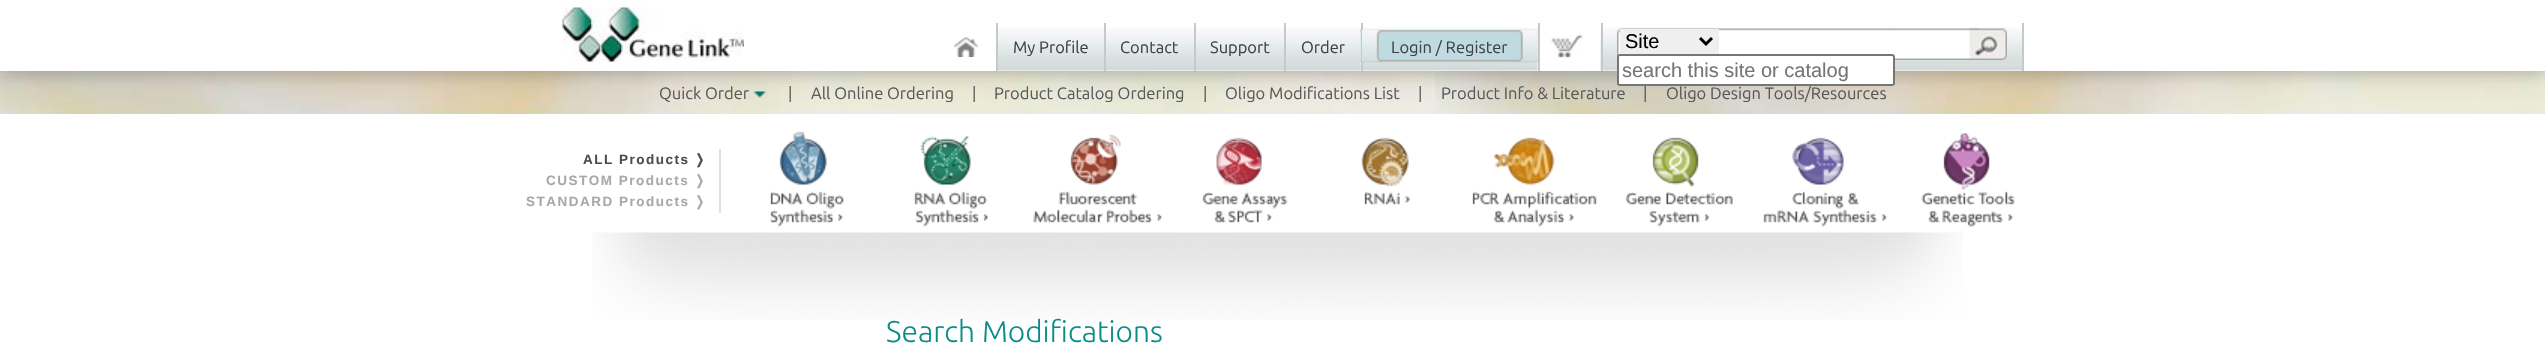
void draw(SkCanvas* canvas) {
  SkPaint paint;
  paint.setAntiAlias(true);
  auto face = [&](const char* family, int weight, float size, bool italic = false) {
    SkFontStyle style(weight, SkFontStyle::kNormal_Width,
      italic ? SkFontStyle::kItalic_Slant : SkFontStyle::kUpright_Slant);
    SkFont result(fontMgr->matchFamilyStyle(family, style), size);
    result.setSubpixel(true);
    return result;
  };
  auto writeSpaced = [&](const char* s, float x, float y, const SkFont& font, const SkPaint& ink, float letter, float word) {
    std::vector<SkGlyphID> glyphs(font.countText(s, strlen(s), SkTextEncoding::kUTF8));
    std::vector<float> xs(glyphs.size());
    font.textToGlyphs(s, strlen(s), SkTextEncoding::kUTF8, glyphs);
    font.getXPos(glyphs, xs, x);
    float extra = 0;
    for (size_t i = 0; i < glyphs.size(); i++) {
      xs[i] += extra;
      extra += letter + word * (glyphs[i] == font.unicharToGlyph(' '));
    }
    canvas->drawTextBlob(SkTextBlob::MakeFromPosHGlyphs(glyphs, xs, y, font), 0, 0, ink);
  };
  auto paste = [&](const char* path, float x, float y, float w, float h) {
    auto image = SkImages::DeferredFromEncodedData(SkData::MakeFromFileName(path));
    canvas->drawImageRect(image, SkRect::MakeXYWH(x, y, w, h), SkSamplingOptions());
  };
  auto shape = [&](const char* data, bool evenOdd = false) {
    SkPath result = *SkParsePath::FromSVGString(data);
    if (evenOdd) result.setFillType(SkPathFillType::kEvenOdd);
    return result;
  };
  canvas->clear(0xffffffff);
  paste("img/14.png", 0, 71, 2545, 43);
  paste("img/15.png", 753, 91, 14, 7);
  paint.setColor(0x4d000000);
  paint.setMaskFilter(SkMaskFilter::MakeBlur(kNormal_SkBlurStyle, 9));
  canvas->drawRect(SkRect::MakeXYWH(0, 2, 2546, 70), paint);
  paint.setMaskFilter(nullptr);
  paint.setColor(0xffffffff);
  canvas->drawRect(SkRect::MakeXYWH(0, 0, 2545, 71), paint);
  paste("img/1.png", 562, 7, 182, 55);
  paste("img/2.png", 954, 37, 24, 20);
  paste("img/3.png", 998, 27, 106, 44);
  paint.setColor(0xffc6c9ca);
  canvas->drawRect(SkRect::MakeXYWH(996, 23, 2, 48), paint);
  paste("img/4.png", 1106, 27, 88, 44);
  canvas->drawRect(SkRect::MakeXYWH(1104, 23, 2, 48), paint);
  paste("img/5.png", 1196, 27, 88, 44);
  canvas->drawRect(SkRect::MakeXYWH(1194, 23, 2, 48), paint);
  paste("img/6.png", 1286, 27, 75, 44);
  canvas->drawRect(SkRect::MakeXYWH(1284, 23, 2, 48), paint);
  paste("img/7.png", 1360, 27, 178, 44);
  canvas->drawRect(SkRect::MakeXYWH(1361, 23, 2, 48), paint);
  paste("img/8.png", 1362, 30, 20, 32);
  paste("img/9.png", 1518, 30, 20, 32);
  paste("img/10.png", 1551, 34, 32, 24);
  canvas->drawRect(SkRect::MakeXYWH(1538, 23, 2, 48), paint);
  paste("img/11.png", 1600, 27, 422, 44);
  canvas->drawRect(SkRect::MakeXYWH(2022, 23, 2, 48), paint);
  canvas->drawRect(SkRect::MakeXYWH(1601, 23, 2, 48), paint);
  paste("img/12.png", 1617, 28, 362, 32);
  paint.setColor(0xffefefef);
  canvas->drawRect(SkRect::MakeXYWH(1620, 29, 99, 25), paint);
  paint.setStroke(true);
  paint.setStrokeWidth(3);
  paint.setColor(0xff000000);
  canvas->drawPath(shape("M1700 38L1706 44L1712 38"), paint);
  paste("img/13.png", 1969, 28, 38, 32);
  paint.setStroke(false);
  paint.setColor(0xffffffff);
  canvas->drawRoundRect(SkRect::MakeXYWH(1618, 55, 276, 30), 2, 2, paint);
  paint.setStroke(true);
  paint.setStrokeWidth(2);
  paint.setColor(0xff767676);
  canvas->drawRoundRect(SkRect::MakeXYWH(1618, 55, 276, 30), 2, 2, paint);
  paint.setStroke(false);
  paint.setColor(0xffe0e0e0);
  canvas->drawRect(SkRect::MakeXYWH(719, 149, 2, 64), paint);
  paste("img/16.png", 769, 131, 75, 96);
  paste("img/17.png", 914, 136, 75, 91);
  paste("img/18.png", 1033, 134, 130, 89);
  paste("img/19.png", 1202, 136, 86, 87);
  paste("img/20.png", 1361, 137, 50, 68);
  paste("img/21.png", 1472, 137, 125, 90);
  paste("img/22.png", 1625, 137, 108, 90);
  paste("img/23.png", 1763, 137, 125, 90);
  paste("img/24.png", 1921, 133, 94, 94);
  paste("img/25.png", 592, 232, 1371, 88);
  auto f0 = face("Ubuntu", 400, 16.5f);
  paint.setColor(0xff414042);
  {
    const struct { const char* s; float x, y; } items[] = {
      {"My Profile", 1013, 53},
      {"Contact", 1120, 53},
      {"Support", 1210, 53},
      {"Order", 1301, 53},
      {"Login / Register", 1391, 53},
    };
    for (auto [s, x, y] : items) {
      canvas->drawString(s, x, y, f0, paint);
    }
  }
  auto f1 = face("Liberation Sans", 400, 20);
  paint.setColor(0xff000000);
  canvas->drawString("Site", 1625, 48, f1, paint);
  paint.setColor(0xff757575);
  canvas->drawString("search this site or catalog", 1622, 77, f1, paint);
  paint.setColor(0xff58595b);
  {
    const struct { const char* s; float x, y; } items[] = {
      {"Quick Order", 659, 99},
      {"|", 788, 99},
      {"All Online Ordering", 811, 99},
      {"|", 972, 99},
      {"Product Catalog Ordering", 994, 99},
      {"|", 1203, 99},
      {"Oligo Modifications List", 1225, 99},
      {"|", 1418, 99},
      {"Product Info & Literature", 1441, 99},
      {"|", 1643, 99},
      {"Oligo Design Tools/Resources", 1666, 99},
    };
    for (auto [s, x, y] : items) {
      canvas->drawString(s, x, y, f0, paint);
    }
  }
  auto f2 = face("Liberation Sans", 700, 13.5f);
  paint.setColor(0xff4d4d4f);
  writeSpaced("ALL Products", 583, 164, f2, paint, 1.5f, 0);
  auto f3 = face("DejaVu Sans", 700, 13.5f);
  writeSpaced("❭", 694, 164, f3, paint, 1.5f, 0);
  paint.setColor(0xffa7a9ac);
  writeSpaced("CUSTOM Products", 546, 185, f2, paint, 1.5f, 0);
  writeSpaced("❭", 694, 185, f3, paint, 1.5f, 0);
  writeSpaced("STANDARD Products", 526, 206, f2, paint, 1.5f, 0);
  writeSpaced("❭", 694, 206, f3, paint, 1.5f, 0);
  auto f4 = face("Ubuntu", 300, 30);
  paint.setColor(0xff0a8d88);
  canvas->drawString("Search Modifications", 886, 342, f4, paint);
}
